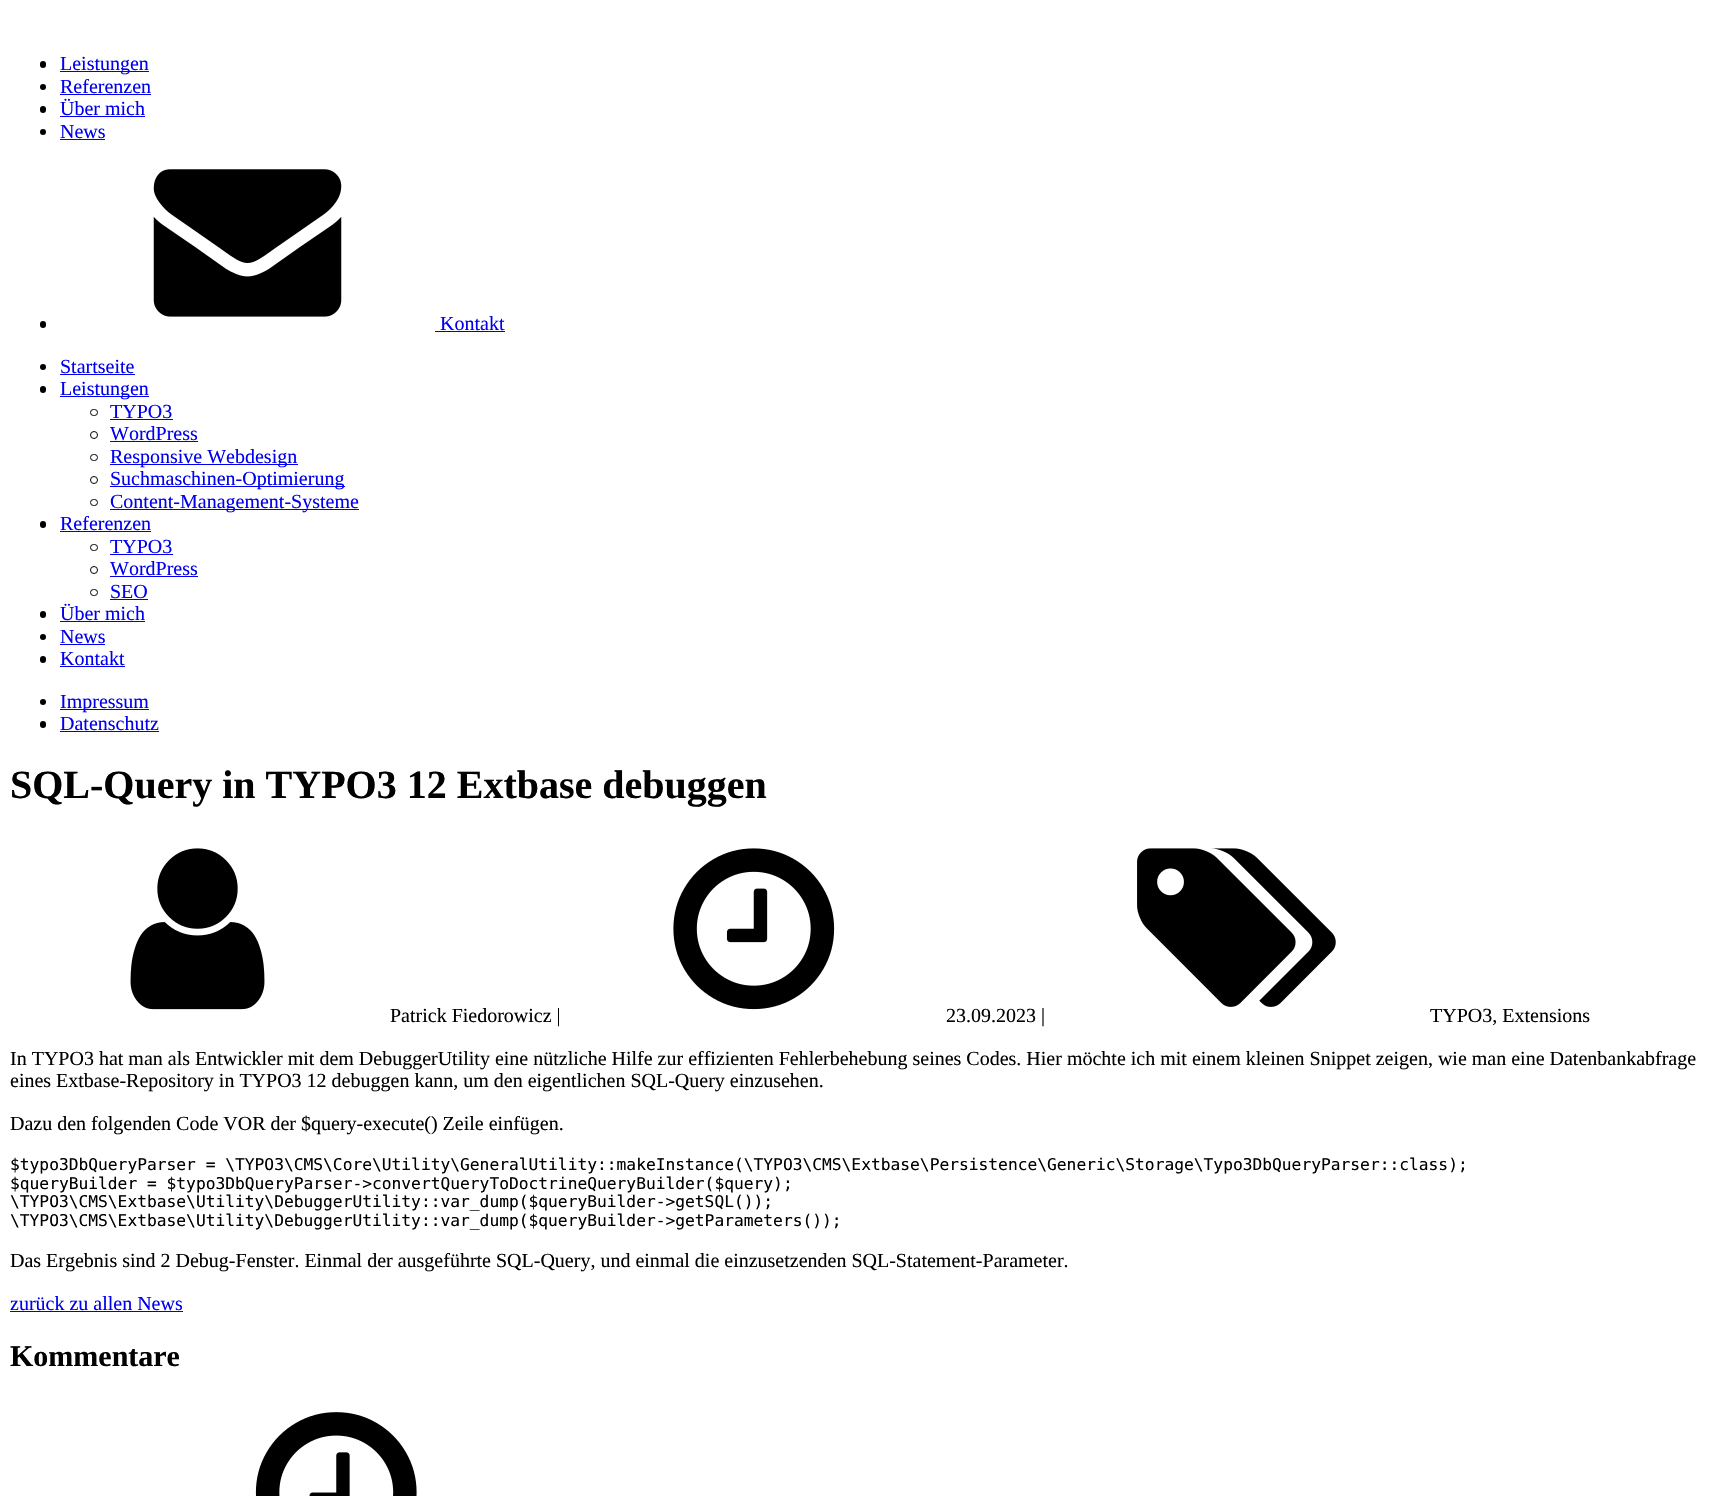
void draw(SkCanvas* canvas) {
  SkPaint paint;
  paint.setAntiAlias(true);
  auto face = [&](const char* family, int weight, float size, bool italic = false) {
    SkFontStyle style(weight, SkFontStyle::kNormal_Width,
      italic ? SkFontStyle::kItalic_Slant : SkFontStyle::kUpright_Slant);
    SkFont result(fontMgr->matchFamilyStyle(family, style), size);
    result.setSubpixel(true);
    return result;
  };
  auto paste = [&](const char* path, float x, float y, float w, float h) {
    auto image = SkImages::DeferredFromEncodedData(SkData::MakeFromFileName(path));
    canvas->drawImageRect(image, SkRect::MakeXYWH(x, y, w, h), SkSamplingOptions());
  };
  canvas->clear(0xffffffff);
  paint.setColor(0xff000000);
  canvas->drawRoundRect(SkRect::MakeXYWH(40, 61, 6, 7), 3, 3, paint);
  paint.setColor(0xff0000ee);
  canvas->drawRect(SkRect::MakeXYWH(60, 71, 89, 1), paint);
  paint.setColor(0xff000000);
  canvas->drawCircle(43, 87, 3, paint);
  paint.setColor(0xff0000ee);
  canvas->drawRect(SkRect::MakeXYWH(60, 94, 91, 1), paint);
  paint.setColor(0xff000000);
  canvas->drawRoundRect(SkRect::MakeXYWH(40, 106, 6, 7), 3, 3, paint);
  paint.setColor(0xff0000ee);
  canvas->drawRect(SkRect::MakeXYWH(60, 116, 85, 1), paint);
  paint.setColor(0xff000000);
  canvas->drawCircle(43, 132, 3, paint);
  paint.setColor(0xff0000ee);
  canvas->drawRect(SkRect::MakeXYWH(60, 139, 45, 1), paint);
  paste("img/1.png", 153, 169, 189, 148);
  paint.setColor(0xff000000);
  canvas->drawRoundRect(SkRect::MakeXYWH(40, 321, 6, 7), 3, 3, paint);
  paint.setColor(0xff0000ee);
  canvas->drawRect(SkRect::MakeXYWH(435, 331, 70, 1), paint);
  paint.setColor(0xff000000);
  canvas->drawCircle(43, 367, 3, paint);
  paint.setColor(0xff0000ee);
  canvas->drawRect(SkRect::MakeXYWH(60, 374, 75, 1), paint);
  paint.setColor(0xff000000);
  canvas->drawRoundRect(SkRect::MakeXYWH(40, 386, 6, 7), 3, 3, paint);
  paint.setColor(0xff0000ee);
  canvas->drawRect(SkRect::MakeXYWH(60, 396, 89, 1), paint);
  paint.setStroke(true);
  paint.setStrokeWidth(1);
  paint.setColor(0xff000000);
  canvas->drawRoundRect(SkRect::MakeXYWH(90.5f, 409.5f, 7, 6), 3, 3, paint);
  paint.setStroke(false);
  paint.setColor(0xff0000ee);
  canvas->drawRect(SkRect::MakeXYWH(110, 419, 63, 1), paint);
  paint.setStroke(true);
  paint.setColor(0xff000000);
  canvas->drawCircle(94, 435, 3.5f, paint);
  paint.setStroke(false);
  paint.setColor(0xff0000ee);
  canvas->drawRect(SkRect::MakeXYWH(110, 441, 88, 1), paint);
  paint.setStroke(true);
  paint.setColor(0xff000000);
  canvas->drawRoundRect(SkRect::MakeXYWH(90.5f, 454.5f, 7, 6), 3, 3, paint);
  paint.setStroke(false);
  paint.setColor(0xff0000ee);
  canvas->drawRect(SkRect::MakeXYWH(110, 464, 188, 1), paint);
  paint.setStroke(true);
  paint.setColor(0xff000000);
  canvas->drawCircle(94, 480, 3.5f, paint);
  paint.setStroke(false);
  paint.setColor(0xff0000ee);
  canvas->drawRect(SkRect::MakeXYWH(110, 486, 235, 1), paint);
  paint.setStroke(true);
  paint.setColor(0xff000000);
  canvas->drawRoundRect(SkRect::MakeXYWH(90.5f, 499.5f, 7, 6), 3, 3, paint);
  paint.setStroke(false);
  paint.setColor(0xff0000ee);
  canvas->drawRect(SkRect::MakeXYWH(110, 509, 249, 1), paint);
  paint.setColor(0xff000000);
  canvas->drawRoundRect(SkRect::MakeXYWH(40, 521, 6, 7), 3, 3, paint);
  paint.setColor(0xff0000ee);
  canvas->drawRect(SkRect::MakeXYWH(60, 531, 91, 1), paint);
  paint.setStroke(true);
  paint.setColor(0xff000000);
  canvas->drawRoundRect(SkRect::MakeXYWH(90.5f, 544.5f, 7, 6), 3, 3, paint);
  paint.setStroke(false);
  paint.setColor(0xff0000ee);
  canvas->drawRect(SkRect::MakeXYWH(110, 554, 63, 1), paint);
  paint.setStroke(true);
  paint.setColor(0xff000000);
  canvas->drawCircle(94, 570, 3.5f, paint);
  paint.setStroke(false);
  paint.setColor(0xff0000ee);
  canvas->drawRect(SkRect::MakeXYWH(110, 576, 88, 1), paint);
  paint.setStroke(true);
  paint.setColor(0xff000000);
  canvas->drawRoundRect(SkRect::MakeXYWH(90.5f, 589.5f, 7, 6), 3, 3, paint);
  paint.setStroke(false);
  paint.setColor(0xff0000ee);
  canvas->drawRect(SkRect::MakeXYWH(110, 599, 38, 1), paint);
  paint.setColor(0xff000000);
  canvas->drawRoundRect(SkRect::MakeXYWH(40, 611, 6, 7), 3, 3, paint);
  paint.setColor(0xff0000ee);
  canvas->drawRect(SkRect::MakeXYWH(60, 621, 85, 1), paint);
  paint.setColor(0xff000000);
  canvas->drawCircle(43, 637, 3, paint);
  paint.setColor(0xff0000ee);
  canvas->drawRect(SkRect::MakeXYWH(60, 644, 45, 1), paint);
  paint.setColor(0xff000000);
  canvas->drawRoundRect(SkRect::MakeXYWH(40, 656, 6, 7), 3, 3, paint);
  paint.setColor(0xff0000ee);
  canvas->drawRect(SkRect::MakeXYWH(60, 666, 65, 1), paint);
  paint.setColor(0xff000000);
  canvas->drawCircle(43, 702, 3, paint);
  paint.setColor(0xff0000ee);
  canvas->drawRect(SkRect::MakeXYWH(60, 709, 89, 1), paint);
  paint.setColor(0xff000000);
  canvas->drawRoundRect(SkRect::MakeXYWH(40, 721, 6, 7), 3, 3, paint);
  paint.setColor(0xff0000ee);
  canvas->drawRect(SkRect::MakeXYWH(60, 731, 99, 1), paint);
  paste("img/2.png", 130, 848, 135, 162);
  paste("img/3.png", 673, 848, 162, 162);
  paste("img/4.png", 1137, 848, 199, 159);
  canvas->drawRect(SkRect::MakeXYWH(10, 1311, 173, 1), paint);
  paste("img/5.png", 255, 1412, 162, 84);
  auto f0 = face("Liberation Serif", 400, 20);
  {
    const struct { const char* s; float x, y; } items[] = {
      {"Leistungen", 60, 70},
      {"Referenzen", 60, 93},
      {"Über mich", 60, 115},
      {"News", 60, 138},
      {"Kontakt", 440, 330},
      {"Startseite", 60, 373},
      {"Leistungen", 60, 395},
      {"TYPO3", 110, 418},
      {"WordPress", 110, 440},
      {"Responsive Webdesign", 110, 463},
      {"Suchmaschinen-Optimierung", 110, 485},
      {"Content-Management-Systeme", 110, 508},
      {"Referenzen", 60, 530},
      {"TYPO3", 110, 553},
      {"WordPress", 110, 575},
      {"SEO", 110, 598},
      {"Über mich", 60, 620},
      {"News", 60, 643},
      {"Kontakt", 60, 665},
      {"Impressum", 60, 708},
      {"Datenschutz", 60, 730},
    };
    for (auto [s, x, y] : items) {
      canvas->drawString(s, x, y, f0, paint);
    }
  }
  auto f1 = face("Liberation Serif", 700, 40);
  paint.setColor(0xff000000);
  canvas->drawString("SQL-Query in TYPO3 12 Extbase debuggen", 10, 798, f1, paint);
  {
    const struct { const char* s; float x, y; } items[] = {
      {"Patrick Fiedorowicz |", 390, 1022},
      {"23.09.2023 |", 946, 1022},
      {"TYPO3, Extensions", 1430, 1022},
      {"In TYPO3 hat man als Entwickler mit dem DebuggerUtility eine nützliche Hilfe zur effizienten Fehlerbehebung seines Codes. Hier möchte ich mit einem kleinen Snippet zeigen, wie man eine Datenbankabfrage", 10, 1065},
      {"eines Extbase-Repository in TYPO3 12 debuggen kann, um den eigentlichen SQL-Query einzusehen.", 10, 1087},
      {"Dazu den folgenden Code VOR der $query-execute() Zeile einfügen.", 10, 1130},
    };
    for (auto [s, x, y] : items) {
      canvas->drawString(s, x, y, f0, paint);
    }
  }
  auto f2 = face("DejaVu Sans Mono", 400, 16.25f);
  {
    const struct { const char* s; float x, y; } items[] = {
      {"$typo3DbQueryParser = \\TYPO3\\CMS\\Core\\Utility\\GeneralUtility::makeInstance(\\TYPO3\\CMS\\Extbase\\Persistence\\Generic\\Storage\\Typo3DbQueryParser::class);", 10, 1170},
      {"$queryBuilder = $typo3DbQueryParser->convertQueryToDoctrineQueryBuilder($query);", 10, 1189},
      {"\\TYPO3\\CMS\\Extbase\\Utility\\DebuggerUtility::var_dump($queryBuilder->getSQL());", 10, 1207},
      {"\\TYPO3\\CMS\\Extbase\\Utility\\DebuggerUtility::var_dump($queryBuilder->getParameters());", 10, 1226},
    };
    for (auto [s, x, y] : items) {
      canvas->drawString(s, x, y, f2, paint);
    }
  }
  canvas->drawString("Das Ergebnis sind 2 Debug-Fenster. Einmal der ausgeführte SQL-Query, und einmal die einzusetzenden SQL-Statement-Parameter.", 10, 1267, f0, paint);
  paint.setColor(0xff0000ee);
  canvas->drawString("zurück zu allen News", 10, 1310, f0, paint);
  auto f3 = face("Liberation Serif", 700, 30);
  paint.setColor(0xff000000);
  canvas->drawString("Kommentare", 10, 1366, f3, paint);
}
